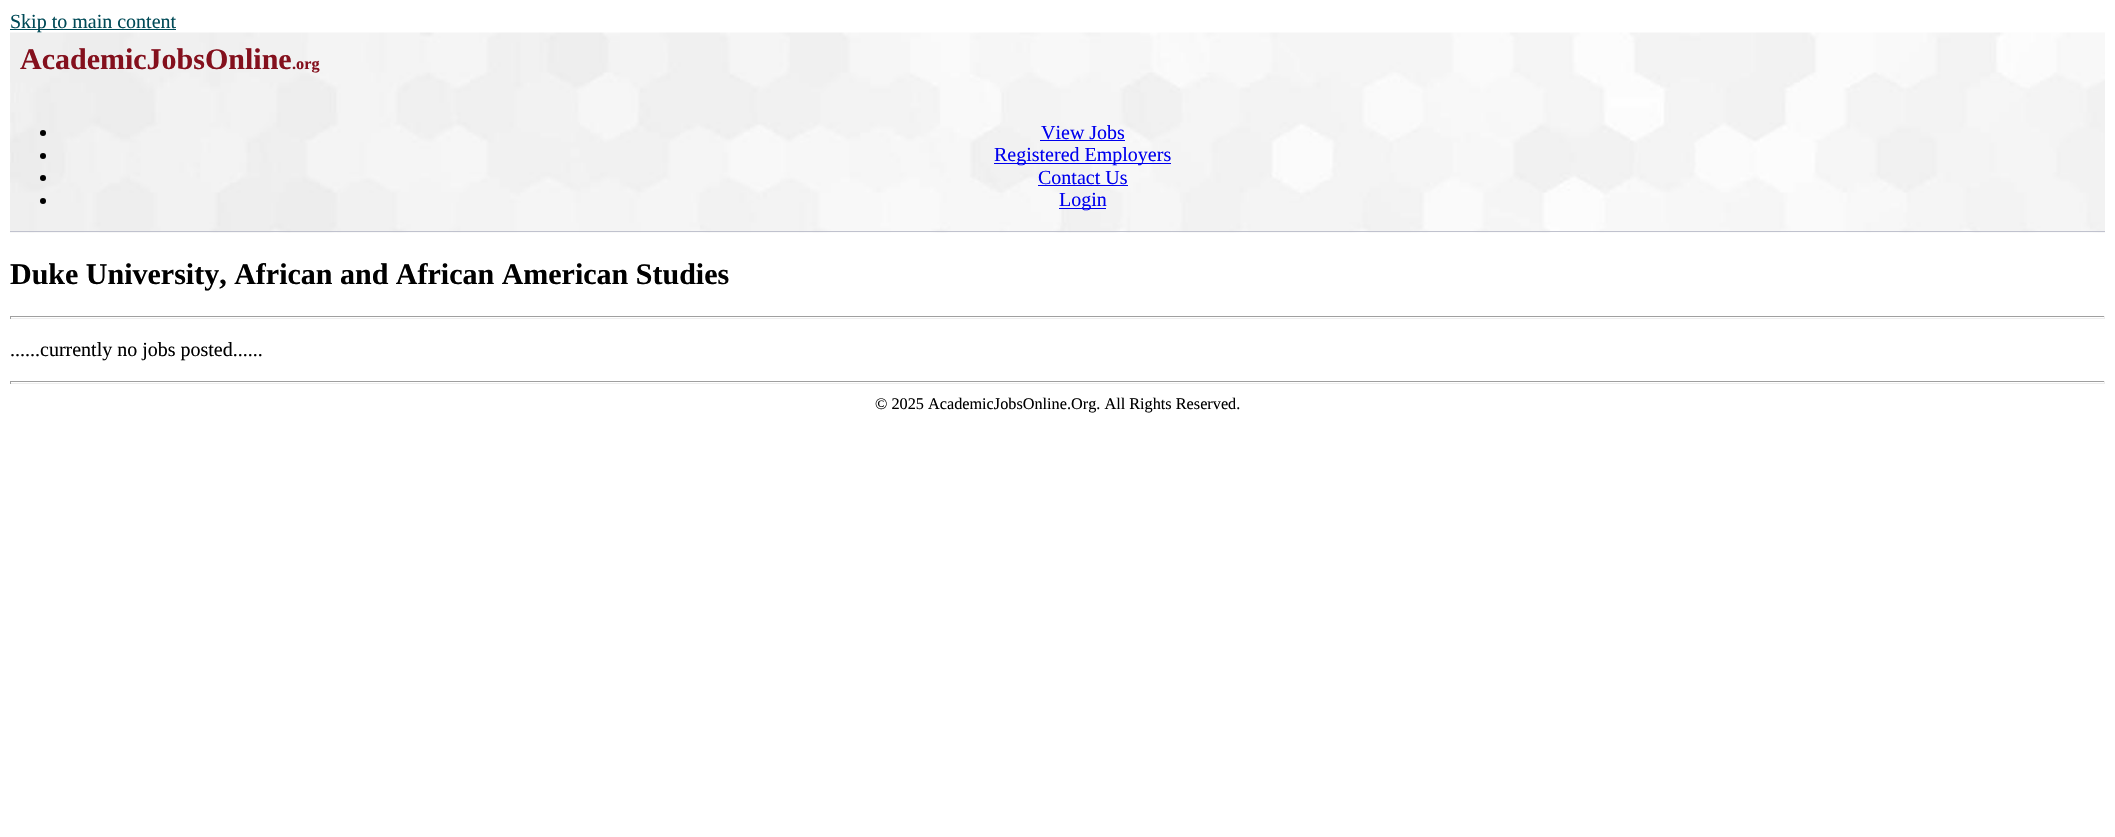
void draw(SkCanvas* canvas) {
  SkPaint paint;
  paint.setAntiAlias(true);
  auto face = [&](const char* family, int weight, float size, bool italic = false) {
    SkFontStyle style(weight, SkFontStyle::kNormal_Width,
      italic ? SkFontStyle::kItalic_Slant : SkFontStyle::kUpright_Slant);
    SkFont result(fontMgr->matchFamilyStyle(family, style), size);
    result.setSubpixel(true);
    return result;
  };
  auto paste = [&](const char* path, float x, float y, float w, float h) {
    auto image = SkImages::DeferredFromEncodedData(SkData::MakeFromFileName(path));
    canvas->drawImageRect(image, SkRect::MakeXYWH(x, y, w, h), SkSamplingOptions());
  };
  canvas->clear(0xffffffff);
  paint.setColor(0xff004a57);
  canvas->drawRect(SkRect::MakeXYWH(10, 29, 166, 1), paint);
  paste("img/1.png", 10, 32, 2095, 201);
  paint.setColor(0xff000000);
  canvas->drawCircle(43, 133, 3, paint);
  paint.setColor(0xff0000ee);
  canvas->drawRect(SkRect::MakeXYWH(1040, 140, 85, 1), paint);
  paint.setColor(0xff000000);
  canvas->drawCircle(43, 156, 3, paint);
  paint.setColor(0xff0000ee);
  canvas->drawRect(SkRect::MakeXYWH(994, 163, 177, 1), paint);
  paint.setColor(0xff000000);
  canvas->drawCircle(43, 178, 3, paint);
  paint.setColor(0xff0000ee);
  canvas->drawRect(SkRect::MakeXYWH(1038, 185, 90, 1), paint);
  paint.setColor(0xff000000);
  canvas->drawCircle(43, 201, 3, paint);
  {
    const struct { float x, y, w, h; SkColor color; } items[] = {
      {1059, 208, 47, 1, 0xff0000ee},
      {10, 231, 2095, 1, 0xffc0c2ce},
      {10, 316, 2095, 1, 0xff9f9f9f},
      {2104, 316, 1, 3, 0xffeeeeee},
      {10, 318, 2095, 1, 0xffeeeeee},
      {10, 316, 1, 3, 0xff9f9f9f},
      {10, 381, 2095, 1, 0xff9f9f9f},
      {2104, 381, 1, 3, 0xffeeeeee},
      {10, 383, 2095, 1, 0xffeeeeee},
      {10, 381, 1, 3, 0xff9f9f9f},
    };
    for (auto [x, y, w, h, color] : items) {
      paint.setColor(color);
      canvas->drawRect(SkRect::MakeXYWH(x, y, w, h), paint);
    }
  }
  auto f0 = face("Liberation Serif", 400, 20);
  paint.setColor(0xff004a57);
  canvas->drawString("Skip to main content", 10, 28, f0, paint);
  auto f1 = face("Liberation Serif", 700, 30);
  paint.setColor(0xff84101d);
  canvas->drawString("AcademicJobsOnline", 20, 69, f1, paint);
  auto f2 = face("Liberation Serif", 700, 16.25f);
  canvas->drawString(".org", 292, 69, f2, paint);
  paint.setColor(0xff0000ee);
  {
    const struct { const char* s; float x, y; } items[] = {
      {"View Jobs", 1041, 139},
      {"Registered Employers", 994, 161},
      {"Contact Us", 1038, 184},
      {"Login", 1059, 206},
    };
    for (auto [s, x, y] : items) {
      canvas->drawString(s, x, y, f0, paint);
    }
  }
  paint.setColor(0xff000000);
  canvas->drawString("Duke University, African and African American Studies", 10, 284, f1, paint);
  canvas->drawString("......currently no jobs posted......", 10, 356, f0, paint);
  auto f3 = face("Liberation Serif", 400, 16.25f);
  canvas->drawString("© 2025 AcademicJobsOnline.Org. All Rights Reserved.", 875, 409, f3, paint);
}
